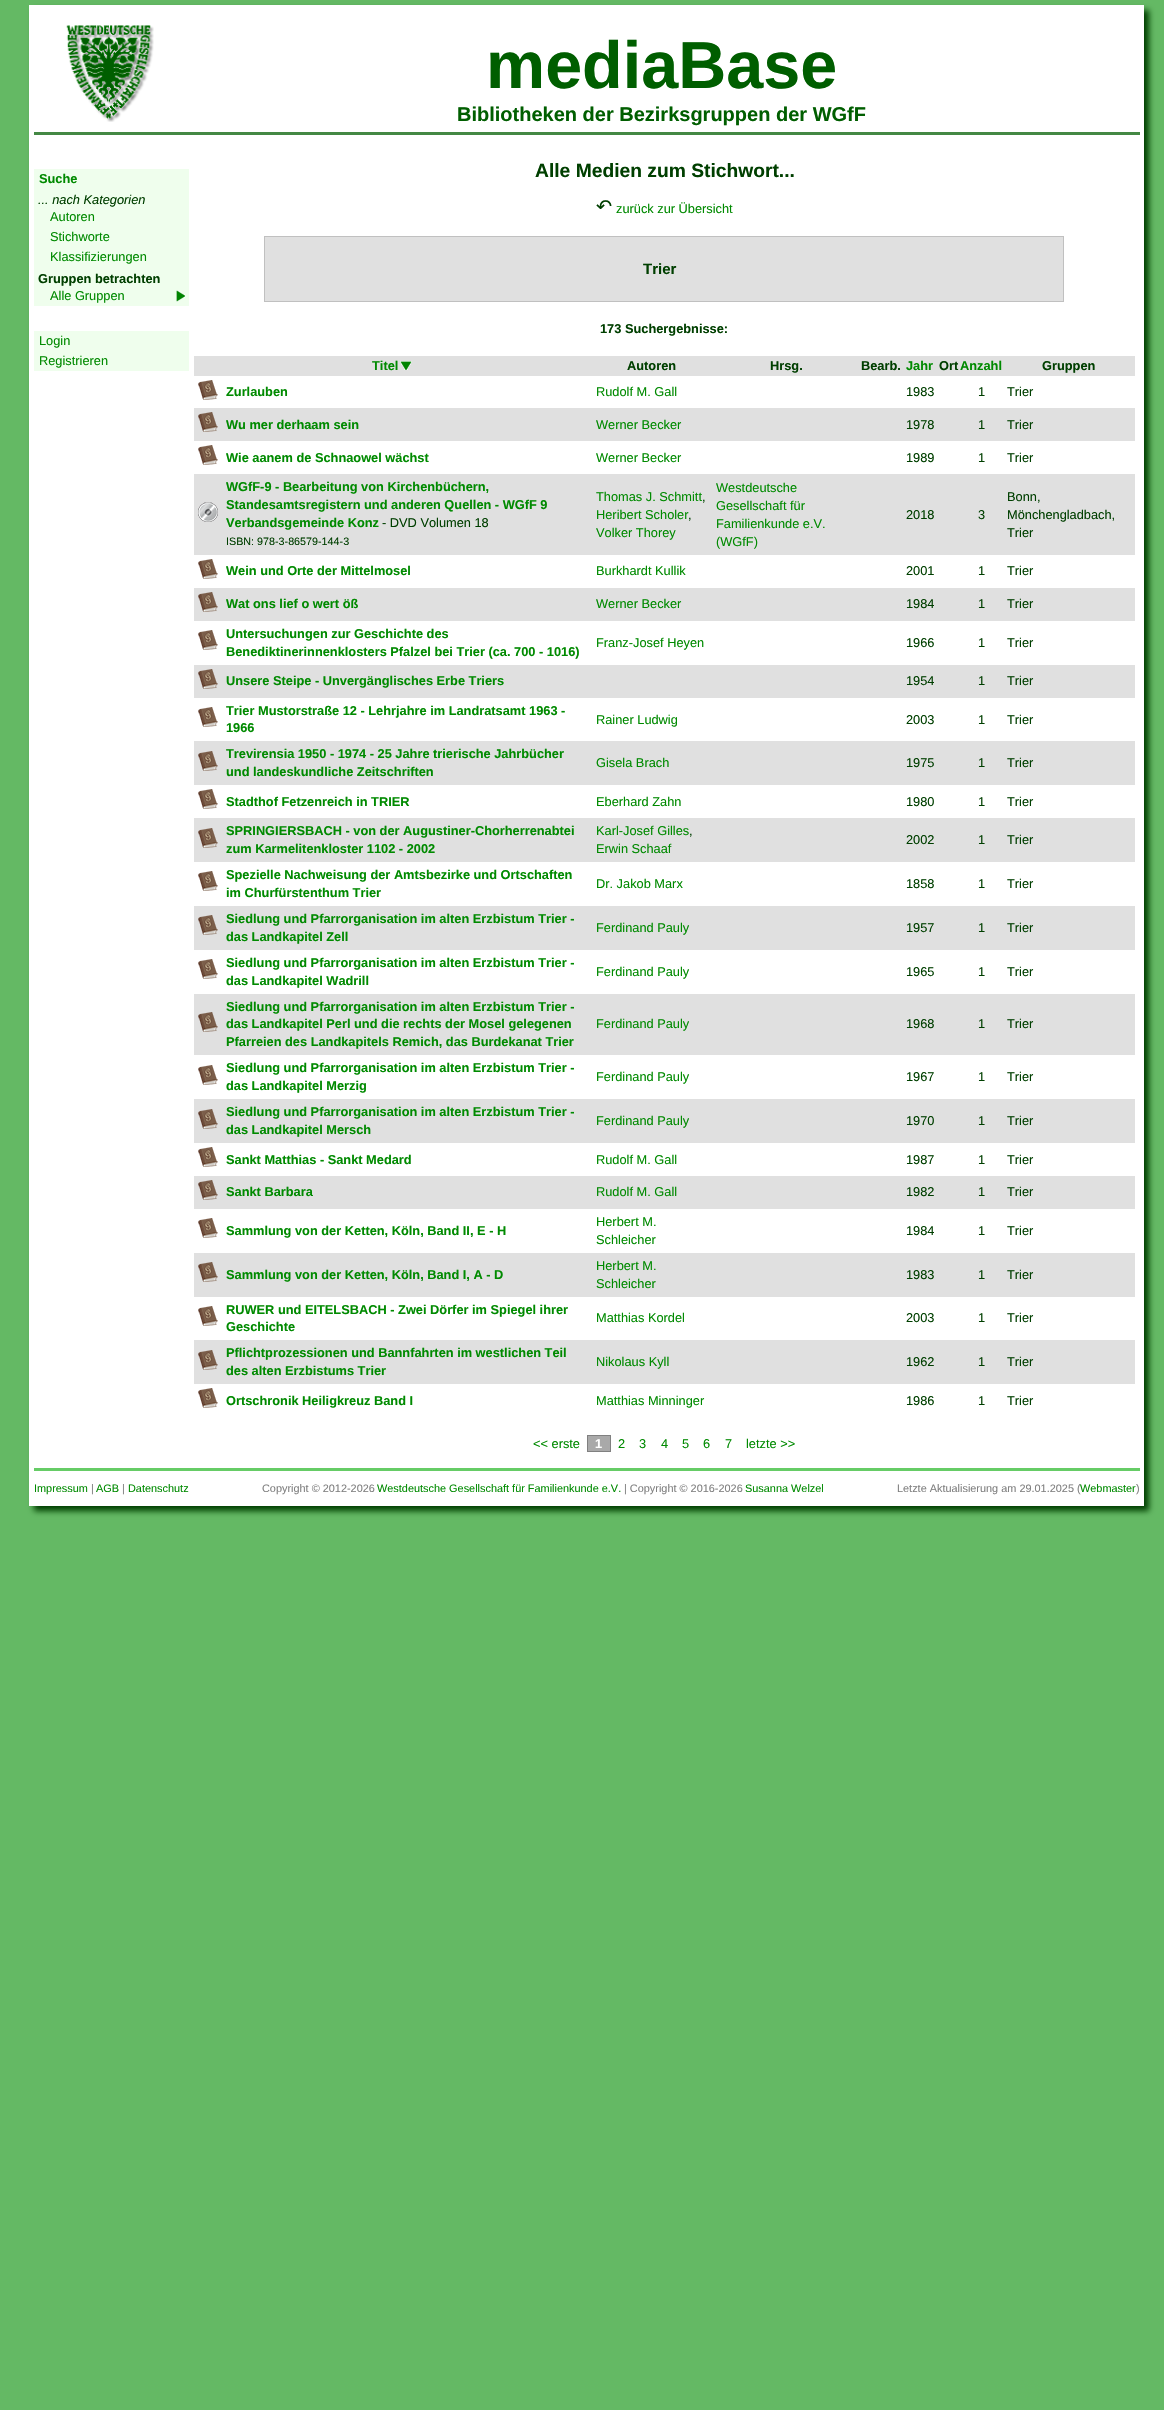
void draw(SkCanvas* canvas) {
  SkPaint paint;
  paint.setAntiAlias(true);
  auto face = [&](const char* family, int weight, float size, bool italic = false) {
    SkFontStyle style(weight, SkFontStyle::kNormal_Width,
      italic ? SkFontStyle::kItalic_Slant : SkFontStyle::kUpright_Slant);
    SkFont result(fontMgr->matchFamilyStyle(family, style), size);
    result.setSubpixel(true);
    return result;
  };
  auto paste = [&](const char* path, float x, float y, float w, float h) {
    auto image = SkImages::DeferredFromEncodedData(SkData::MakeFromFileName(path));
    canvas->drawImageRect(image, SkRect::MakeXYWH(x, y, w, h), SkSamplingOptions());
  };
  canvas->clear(0xff64b964);
  paint.setColor(0xff003f00);
  paint.setMaskFilter(SkMaskFilter::MakeBlur(kNormal_SkBlurStyle, 3));
  canvas->drawRect(SkRect::MakeXYWH(34, 10, 1115, 1501), paint);
  paint.setMaskFilter(nullptr);
  paint.setColor(0xffffffff);
  canvas->drawRect(SkRect::MakeXYWH(29, 5, 1115, 1501), paint);
  paint.setColor(0xff448844);
  canvas->drawRect(SkRect::MakeXYWH(34, 132, 1106, 3), paint);
  paste("img/1.png", 66, 25, 88, 97);
  paint.setColor(0xffeffeed);
  canvas->drawRect(SkRect::MakeXYWH(34, 169, 155, 137), paint);
  paste("img/2.png", 176, 290, 9, 12);
  {
    const struct { float x, y, w, h; SkColor color; } items[] = {
      {34, 331, 155, 40, 0xffeffeed},
      {265, 237, 798, 64, 0xffe0e0e0},
      {264, 236, 800, 1, 0xffc0c0c0},
      {1063, 236, 1, 66, 0xffc0c0c0},
      {264, 301, 800, 1, 0xffc0c0c0},
      {264, 236, 1, 66, 0xffc0c0c0},
      {194, 356, 941, 20, 0xffe0e0e0},
    };
    for (auto [x, y, w, h, color] : items) {
      paint.setColor(color);
      canvas->drawRect(SkRect::MakeXYWH(x, y, w, h), paint);
    }
  }
  paste("img/3.png", 400, 361, 12, 9);
  paste("img/4.png", 198, 380, 20, 20);
  canvas->drawRect(SkRect::MakeXYWH(194, 408, 941, 33), paint);
  paste("img/5.png", 198, 412, 20, 20);
  paste("img/4.png", 198, 445, 20, 20);
  canvas->drawRect(SkRect::MakeXYWH(194, 474, 941, 81), paint);
  paste("img/6.png", 198, 502, 20, 20);
  paste("img/4.png", 198, 559, 20, 20);
  canvas->drawRect(SkRect::MakeXYWH(194, 588, 941, 33), paint);
  paste("img/5.png", 198, 592, 20, 20);
  paste("img/4.png", 198, 630, 20, 20);
  canvas->drawRect(SkRect::MakeXYWH(194, 665, 941, 33), paint);
  paste("img/5.png", 198, 669, 20, 20);
  paste("img/4.png", 198, 707, 20, 20);
  canvas->drawRect(SkRect::MakeXYWH(194, 741, 941, 44), paint);
  paste("img/5.png", 198, 751, 20, 20);
  paste("img/4.png", 198, 789, 20, 20);
  canvas->drawRect(SkRect::MakeXYWH(194, 818, 941, 44), paint);
  paste("img/5.png", 198, 828, 20, 20);
  paste("img/4.png", 198, 871, 20, 20);
  canvas->drawRect(SkRect::MakeXYWH(194, 906, 941, 44), paint);
  paste("img/5.png", 198, 915, 20, 20);
  paste("img/4.png", 198, 959, 20, 20);
  canvas->drawRect(SkRect::MakeXYWH(194, 994, 941, 61), paint);
  paste("img/5.png", 198, 1012, 20, 20);
  paste("img/4.png", 198, 1065, 20, 20);
  canvas->drawRect(SkRect::MakeXYWH(194, 1099, 941, 44), paint);
  paste("img/5.png", 198, 1109, 20, 20);
  paste("img/4.png", 198, 1147, 20, 20);
  canvas->drawRect(SkRect::MakeXYWH(194, 1176, 941, 33), paint);
  paste("img/5.png", 198, 1180, 20, 20);
  paste("img/4.png", 198, 1218, 20, 20);
  canvas->drawRect(SkRect::MakeXYWH(194, 1253, 941, 44), paint);
  paste("img/5.png", 198, 1262, 20, 20);
  paste("img/4.png", 198, 1306, 20, 20);
  canvas->drawRect(SkRect::MakeXYWH(194, 1340, 941, 44), paint);
  paste("img/5.png", 198, 1350, 20, 20);
  paste("img/4.png", 198, 1388, 20, 20);
  paint.setColor(0xffa9a9a9);
  canvas->drawRect(SkRect::MakeXYWH(587.5f, 1435.5f, 23, 16), paint);
  paint.setStroke(true);
  paint.setStrokeWidth(1);
  paint.setColor(0xff808080);
  canvas->drawRect(SkRect::MakeXYWH(587.5f, 1435.5f, 23, 16), paint);
  paint.setStroke(false);
  paint.setColor(0xff66cc66);
  canvas->drawRect(SkRect::MakeXYWH(34, 1468, 1106, 3), paint);
  auto f0 = face("Liberation Sans", 700, 66.5f);
  paint.setColor(0xff005e00);
  canvas->drawString("mediaBase", 486, 88, f0, paint);
  auto f1 = face("Liberation Sans", 700, 20);
  canvas->drawString("Bibliotheken der Bezirksgruppen der WGfF", 457, 121, f1, paint);
  auto f2 = face("Liberation Sans", 700, 12.8f);
  paint.setColor(0xff008a00);
  canvas->drawString("Suche", 39, 183, f2, paint);
  auto f3 = face("Liberation Sans", 400, 12.8f, true);
  paint.setColor(0xff003f00);
  canvas->drawString("... nach Kategorien", 38, 204, f3, paint);
  auto f4 = face("Liberation Sans", 400, 12.8f);
  paint.setColor(0xff008a00);
  {
    const struct { const char* s; float x, y; } items[] = {
      {"Autoren", 50, 221},
      {"Stichworte", 50, 241},
      {"Klassifizierungen", 50, 261},
    };
    for (auto [s, x, y] : items) {
      canvas->drawString(s, x, y, f4, paint);
    }
  }
  paint.setColor(0xff003f00);
  canvas->drawString("Gruppen betrachten", 38, 283, f2, paint);
  paint.setColor(0xff008a00);
  {
    const struct { const char* s; float x, y; } items[] = {
      {"Alle Gruppen", 50, 300},
      {"Login", 39, 345},
      {"Registrieren", 39, 365},
    };
    for (auto [s, x, y] : items) {
      canvas->drawString(s, x, y, f4, paint);
    }
  }
  auto f5 = face("Liberation Sans", 700, 19.25f);
  paint.setColor(0xff003f00);
  canvas->drawString("Alle Medien zum Stichwort...", 535, 177, f5, paint);
  auto f6 = face("DejaVu Sans", 400, 19.25f);
  canvas->drawString("↶", 596, 213, f6, paint);
  paint.setColor(0xff008a00);
  canvas->drawString("zurück zur Übersicht", 616, 213, f4, paint);
  auto f7 = face("Liberation Sans", 700, 15);
  paint.setColor(0xff003f00);
  canvas->drawString("Trier", 643, 274, f7, paint);
  canvas->drawString("173 Suchergebnisse:", 600, 333, f2, paint);
  paint.setColor(0xff008a00);
  canvas->drawString("Titel", 372, 370, f2, paint);
  paint.setColor(0xff003f00);
  {
    const struct { const char* s; float x, y; } items[] = {
      {"Autoren", 627, 370},
      {"Hrsg.", 770, 370},
      {"Bearb.", 861, 370},
    };
    for (auto [s, x, y] : items) {
      canvas->drawString(s, x, y, f2, paint);
    }
  }
  paint.setColor(0xff008a00);
  canvas->drawString("Jahr", 906, 370, f2, paint);
  paint.setColor(0xff003f00);
  canvas->drawString("Ort", 939, 370, f2, paint);
  paint.setColor(0xff008a00);
  canvas->drawString("Anzahl", 960, 370, f2, paint);
  paint.setColor(0xff003f00);
  canvas->drawString("Gruppen", 1042, 370, f2, paint);
  paint.setColor(0xff008a00);
  canvas->drawString("Zurlauben", 226, 396, f2, paint);
  canvas->drawString("Rudolf M. Gall", 596, 396, f4, paint);
  paint.setColor(0xff003f00);
  {
    const struct { const char* s; float x, y; } items[] = {
      {"1983", 906, 396},
      {"1", 978, 396},
      {"Trier", 1007, 396},
    };
    for (auto [s, x, y] : items) {
      canvas->drawString(s, x, y, f4, paint);
    }
  }
  paint.setColor(0xff008a00);
  canvas->drawString("Wu mer derhaam sein", 226, 429, f2, paint);
  canvas->drawString("Werner Becker", 596, 429, f4, paint);
  paint.setColor(0xff003f00);
  {
    const struct { const char* s; float x, y; } items[] = {
      {"1978", 906, 429},
      {"1", 978, 429},
      {"Trier", 1007, 429},
    };
    for (auto [s, x, y] : items) {
      canvas->drawString(s, x, y, f4, paint);
    }
  }
  paint.setColor(0xff008a00);
  canvas->drawString("Wie aanem de Schnaowel wächst", 226, 462, f2, paint);
  canvas->drawString("Werner Becker", 596, 462, f4, paint);
  paint.setColor(0xff003f00);
  {
    const struct { const char* s; float x, y; } items[] = {
      {"1989", 906, 462},
      {"1", 978, 462},
      {"Trier", 1007, 462},
    };
    for (auto [s, x, y] : items) {
      canvas->drawString(s, x, y, f4, paint);
    }
  }
  paint.setColor(0xff008a00);
  {
    const struct { const char* s; float x, y; } items[] = {
      {"WGfF-9 - Bearbeitung von Kirchenbüchern,", 226, 491},
      {"Standesamtsregistern und anderen Quellen - WGfF 9", 226, 509},
      {"Verbandsgemeinde Konz", 226, 527},
    };
    for (auto [s, x, y] : items) {
      canvas->drawString(s, x, y, f2, paint);
    }
  }
  paint.setColor(0xff003f00);
  canvas->drawString("- DVD Volumen 18", 382, 527, f4, paint);
  auto f8 = face("Liberation Sans", 400, 10.75f);
  canvas->drawString("ISBN: 978-3-86579-144-3", 226, 545, f8, paint);
  paint.setColor(0xff008a00);
  canvas->drawString("Thomas J. Schmitt", 596, 501, f4, paint);
  paint.setColor(0xff003f00);
  canvas->drawString(",", 702, 501, f4, paint);
  paint.setColor(0xff008a00);
  canvas->drawString("Heribert Scholer", 596, 519, f4, paint);
  paint.setColor(0xff003f00);
  canvas->drawString(",", 688, 519, f4, paint);
  paint.setColor(0xff008a00);
  {
    const struct { const char* s; float x, y; } items[] = {
      {"Volker Thorey", 596, 537},
      {"Westdeutsche", 716, 492},
      {"Gesellschaft für", 716, 510},
      {"Familienkunde e.V.", 716, 528},
      {"(WGfF)", 716, 546},
    };
    for (auto [s, x, y] : items) {
      canvas->drawString(s, x, y, f4, paint);
    }
  }
  paint.setColor(0xff003f00);
  {
    const struct { const char* s; float x, y; } items[] = {
      {"2018", 906, 519},
      {"3", 978, 519},
      {"Bonn,", 1007, 501},
      {"Mönchengladbach,", 1007, 519},
      {"Trier", 1007, 537},
    };
    for (auto [s, x, y] : items) {
      canvas->drawString(s, x, y, f4, paint);
    }
  }
  paint.setColor(0xff008a00);
  canvas->drawString("Wein und Orte der Mittelmosel", 226, 575, f2, paint);
  canvas->drawString("Burkhardt Kullik", 596, 575, f4, paint);
  paint.setColor(0xff003f00);
  {
    const struct { const char* s; float x, y; } items[] = {
      {"2001", 906, 575},
      {"1", 978, 575},
      {"Trier", 1007, 575},
    };
    for (auto [s, x, y] : items) {
      canvas->drawString(s, x, y, f4, paint);
    }
  }
  paint.setColor(0xff008a00);
  canvas->drawString("Wat ons lief o wert öß", 226, 608, f2, paint);
  canvas->drawString("Werner Becker", 596, 608, f4, paint);
  paint.setColor(0xff003f00);
  {
    const struct { const char* s; float x, y; } items[] = {
      {"1984", 906, 608},
      {"1", 978, 608},
      {"Trier", 1007, 608},
    };
    for (auto [s, x, y] : items) {
      canvas->drawString(s, x, y, f4, paint);
    }
  }
  paint.setColor(0xff008a00);
  canvas->drawString("Untersuchungen zur Geschichte des", 226, 638, f2, paint);
  canvas->drawString("Benediktinerinnenklosters Pfalzel bei Trier (ca. 700 - 1016)", 226, 656, f2, paint);
  canvas->drawString("Franz-Josef Heyen", 596, 647, f4, paint);
  paint.setColor(0xff003f00);
  {
    const struct { const char* s; float x, y; } items[] = {
      {"1966", 906, 647},
      {"1", 978, 647},
      {"Trier", 1007, 647},
    };
    for (auto [s, x, y] : items) {
      canvas->drawString(s, x, y, f4, paint);
    }
  }
  paint.setColor(0xff008a00);
  canvas->drawString("Unsere Steipe - Unvergänglisches Erbe Triers", 226, 685, f2, paint);
  paint.setColor(0xff003f00);
  {
    const struct { const char* s; float x, y; } items[] = {
      {"1954", 906, 685},
      {"1", 978, 685},
      {"Trier", 1007, 685},
    };
    for (auto [s, x, y] : items) {
      canvas->drawString(s, x, y, f4, paint);
    }
  }
  paint.setColor(0xff008a00);
  canvas->drawString("Trier Mustorstraße 12 - Lehrjahre im Landratsamt 1963 -", 226, 715, f2, paint);
  canvas->drawString("1966", 226, 732, f2, paint);
  canvas->drawString("Rainer Ludwig", 596, 724, f4, paint);
  paint.setColor(0xff003f00);
  {
    const struct { const char* s; float x, y; } items[] = {
      {"2003", 906, 724},
      {"1", 978, 724},
      {"Trier", 1007, 724},
    };
    for (auto [s, x, y] : items) {
      canvas->drawString(s, x, y, f4, paint);
    }
  }
  paint.setColor(0xff008a00);
  canvas->drawString("Trevirensia 1950 - 1974 - 25 Jahre trierische Jahrbücher", 226, 758, f2, paint);
  canvas->drawString("und landeskundliche Zeitschriften", 226, 776, f2, paint);
  canvas->drawString("Gisela Brach", 596, 767, f4, paint);
  paint.setColor(0xff003f00);
  {
    const struct { const char* s; float x, y; } items[] = {
      {"1975", 906, 767},
      {"1", 978, 767},
      {"Trier", 1007, 767},
    };
    for (auto [s, x, y] : items) {
      canvas->drawString(s, x, y, f4, paint);
    }
  }
  paint.setColor(0xff008a00);
  canvas->drawString("Stadthof Fetzenreich in TRIER", 226, 806, f2, paint);
  canvas->drawString("Eberhard Zahn", 596, 806, f4, paint);
  paint.setColor(0xff003f00);
  {
    const struct { const char* s; float x, y; } items[] = {
      {"1980", 906, 806},
      {"1", 978, 806},
      {"Trier", 1007, 806},
    };
    for (auto [s, x, y] : items) {
      canvas->drawString(s, x, y, f4, paint);
    }
  }
  paint.setColor(0xff008a00);
  canvas->drawString("SPRINGIERSBACH - von der Augustiner-Chorherrenabtei", 226, 835, f2, paint);
  canvas->drawString("zum Karmelitenkloster 1102 - 2002", 226, 853, f2, paint);
  canvas->drawString("Karl-Josef Gilles", 596, 835, f4, paint);
  paint.setColor(0xff003f00);
  canvas->drawString(",", 689, 835, f4, paint);
  paint.setColor(0xff008a00);
  canvas->drawString("Erwin Schaaf", 596, 853, f4, paint);
  paint.setColor(0xff003f00);
  {
    const struct { const char* s; float x, y; } items[] = {
      {"2002", 906, 844},
      {"1", 978, 844},
      {"Trier", 1007, 844},
    };
    for (auto [s, x, y] : items) {
      canvas->drawString(s, x, y, f4, paint);
    }
  }
  paint.setColor(0xff008a00);
  canvas->drawString("Spezielle Nachweisung der Amtsbezirke und Ortschaften", 226, 879, f2, paint);
  canvas->drawString("im Churfürstenthum Trier", 226, 897, f2, paint);
  canvas->drawString("Dr. Jakob Marx", 596, 888, f4, paint);
  paint.setColor(0xff003f00);
  {
    const struct { const char* s; float x, y; } items[] = {
      {"1858", 906, 888},
      {"1", 978, 888},
      {"Trier", 1007, 888},
    };
    for (auto [s, x, y] : items) {
      canvas->drawString(s, x, y, f4, paint);
    }
  }
  paint.setColor(0xff008a00);
  canvas->drawString("Siedlung und Pfarrorganisation im alten Erzbistum Trier -", 226, 923, f2, paint);
  canvas->drawString("das Landkapitel Zell", 226, 941, f2, paint);
  canvas->drawString("Ferdinand Pauly", 596, 932, f4, paint);
  paint.setColor(0xff003f00);
  {
    const struct { const char* s; float x, y; } items[] = {
      {"1957", 906, 932},
      {"1", 978, 932},
      {"Trier", 1007, 932},
    };
    for (auto [s, x, y] : items) {
      canvas->drawString(s, x, y, f4, paint);
    }
  }
  paint.setColor(0xff008a00);
  canvas->drawString("Siedlung und Pfarrorganisation im alten Erzbistum Trier -", 226, 967, f2, paint);
  canvas->drawString("das Landkapitel Wadrill", 226, 985, f2, paint);
  canvas->drawString("Ferdinand Pauly", 596, 976, f4, paint);
  paint.setColor(0xff003f00);
  {
    const struct { const char* s; float x, y; } items[] = {
      {"1965", 906, 976},
      {"1", 978, 976},
      {"Trier", 1007, 976},
    };
    for (auto [s, x, y] : items) {
      canvas->drawString(s, x, y, f4, paint);
    }
  }
  paint.setColor(0xff008a00);
  {
    const struct { const char* s; float x, y; } items[] = {
      {"Siedlung und Pfarrorganisation im alten Erzbistum Trier -", 226, 1011},
      {"das Landkapitel Perl und die rechts der Mosel gelegenen", 226, 1028},
      {"Pfarreien des Landkapitels Remich, das Burdekanat Trier", 226, 1046},
    };
    for (auto [s, x, y] : items) {
      canvas->drawString(s, x, y, f2, paint);
    }
  }
  canvas->drawString("Ferdinand Pauly", 596, 1028, f4, paint);
  paint.setColor(0xff003f00);
  {
    const struct { const char* s; float x, y; } items[] = {
      {"1968", 906, 1028},
      {"1", 978, 1028},
      {"Trier", 1007, 1028},
    };
    for (auto [s, x, y] : items) {
      canvas->drawString(s, x, y, f4, paint);
    }
  }
  paint.setColor(0xff008a00);
  canvas->drawString("Siedlung und Pfarrorganisation im alten Erzbistum Trier -", 226, 1072, f2, paint);
  canvas->drawString("das Landkapitel Merzig", 226, 1090, f2, paint);
  canvas->drawString("Ferdinand Pauly", 596, 1081, f4, paint);
  paint.setColor(0xff003f00);
  {
    const struct { const char* s; float x, y; } items[] = {
      {"1967", 906, 1081},
      {"1", 978, 1081},
      {"Trier", 1007, 1081},
    };
    for (auto [s, x, y] : items) {
      canvas->drawString(s, x, y, f4, paint);
    }
  }
  paint.setColor(0xff008a00);
  canvas->drawString("Siedlung und Pfarrorganisation im alten Erzbistum Trier -", 226, 1116, f2, paint);
  canvas->drawString("das Landkapitel Mersch", 226, 1134, f2, paint);
  canvas->drawString("Ferdinand Pauly", 596, 1125, f4, paint);
  paint.setColor(0xff003f00);
  {
    const struct { const char* s; float x, y; } items[] = {
      {"1970", 906, 1125},
      {"1", 978, 1125},
      {"Trier", 1007, 1125},
    };
    for (auto [s, x, y] : items) {
      canvas->drawString(s, x, y, f4, paint);
    }
  }
  paint.setColor(0xff008a00);
  canvas->drawString("Sankt Matthias - Sankt Medard", 226, 1164, f2, paint);
  canvas->drawString("Rudolf M. Gall", 596, 1164, f4, paint);
  paint.setColor(0xff003f00);
  {
    const struct { const char* s; float x, y; } items[] = {
      {"1987", 906, 1164},
      {"1", 978, 1164},
      {"Trier", 1007, 1164},
    };
    for (auto [s, x, y] : items) {
      canvas->drawString(s, x, y, f4, paint);
    }
  }
  paint.setColor(0xff008a00);
  canvas->drawString("Sankt Barbara", 226, 1196, f2, paint);
  canvas->drawString("Rudolf M. Gall", 596, 1196, f4, paint);
  paint.setColor(0xff003f00);
  {
    const struct { const char* s; float x, y; } items[] = {
      {"1982", 906, 1196},
      {"1", 978, 1196},
      {"Trier", 1007, 1196},
    };
    for (auto [s, x, y] : items) {
      canvas->drawString(s, x, y, f4, paint);
    }
  }
  paint.setColor(0xff008a00);
  canvas->drawString("Sammlung von der Ketten, Köln, Band II, E - H", 226, 1235, f2, paint);
  canvas->drawString("Herbert M.", 596, 1226, f4, paint);
  canvas->drawString("Schleicher", 596, 1244, f4, paint);
  paint.setColor(0xff003f00);
  {
    const struct { const char* s; float x, y; } items[] = {
      {"1984", 906, 1235},
      {"1", 978, 1235},
      {"Trier", 1007, 1235},
    };
    for (auto [s, x, y] : items) {
      canvas->drawString(s, x, y, f4, paint);
    }
  }
  paint.setColor(0xff008a00);
  canvas->drawString("Sammlung von der Ketten, Köln, Band I, A - D", 226, 1279, f2, paint);
  canvas->drawString("Herbert M.", 596, 1270, f4, paint);
  canvas->drawString("Schleicher", 596, 1288, f4, paint);
  paint.setColor(0xff003f00);
  {
    const struct { const char* s; float x, y; } items[] = {
      {"1983", 906, 1279},
      {"1", 978, 1279},
      {"Trier", 1007, 1279},
    };
    for (auto [s, x, y] : items) {
      canvas->drawString(s, x, y, f4, paint);
    }
  }
  paint.setColor(0xff008a00);
  canvas->drawString("RUWER und EITELSBACH - Zwei Dörfer im Spiegel ihrer", 226, 1314, f2, paint);
  canvas->drawString("Geschichte", 226, 1331, f2, paint);
  canvas->drawString("Matthias Kordel", 596, 1322, f4, paint);
  paint.setColor(0xff003f00);
  {
    const struct { const char* s; float x, y; } items[] = {
      {"2003", 906, 1322},
      {"1", 978, 1322},
      {"Trier", 1007, 1322},
    };
    for (auto [s, x, y] : items) {
      canvas->drawString(s, x, y, f4, paint);
    }
  }
  paint.setColor(0xff008a00);
  canvas->drawString("Pflichtprozessionen und Bannfahrten im westlichen Teil", 226, 1357, f2, paint);
  canvas->drawString("des alten Erzbistums Trier", 226, 1375, f2, paint);
  canvas->drawString("Nikolaus Kyll", 596, 1366, f4, paint);
  paint.setColor(0xff003f00);
  {
    const struct { const char* s; float x, y; } items[] = {
      {"1962", 906, 1366},
      {"1", 978, 1366},
      {"Trier", 1007, 1366},
    };
    for (auto [s, x, y] : items) {
      canvas->drawString(s, x, y, f4, paint);
    }
  }
  paint.setColor(0xff008a00);
  canvas->drawString("Ortschronik Heiligkreuz Band I", 226, 1405, f2, paint);
  canvas->drawString("Matthias Minninger", 596, 1405, f4, paint);
  paint.setColor(0xff003f00);
  {
    const struct { const char* s; float x, y; } items[] = {
      {"1986", 906, 1405},
      {"1", 978, 1405},
      {"Trier", 1007, 1405},
    };
    for (auto [s, x, y] : items) {
      canvas->drawString(s, x, y, f4, paint);
    }
  }
  paint.setColor(0xff008a00);
  canvas->drawString("<< erste", 533, 1448, f4, paint);
  paint.setColor(0xffffffff);
  canvas->drawString("1", 595, 1448, f2, paint);
  paint.setColor(0xff008a00);
  {
    const struct { const char* s; float x, y; } items[] = {
      {"2", 618, 1448},
      {"3", 639, 1448},
      {"4", 661, 1448},
      {"5", 682, 1448},
      {"6", 703, 1448},
      {"7", 725, 1448},
      {"letzte >>", 746, 1448},
    };
    for (auto [s, x, y] : items) {
      canvas->drawString(s, x, y, f4, paint);
    }
  }
  auto f9 = face("Liberation Sans", 400, 10.9f);
  canvas->drawString("Impressum", 34, 1492, f9, paint);
  paint.setColor(0xff808080);
  canvas->drawString("|", 91, 1492, f9, paint);
  paint.setColor(0xff008a00);
  canvas->drawString("AGB", 96, 1492, f9, paint);
  paint.setColor(0xff808080);
  canvas->drawString("|", 122, 1492, f9, paint);
  paint.setColor(0xff008a00);
  canvas->drawString("Datenschutz", 128, 1492, f9, paint);
  paint.setColor(0xff808080);
  canvas->drawString("Copyright © 2012-2026", 262, 1492, f9, paint);
  paint.setColor(0xff008a00);
  canvas->drawString("Westdeutsche Gesellschaft für Familienkunde e.V.", 377, 1492, f9, paint);
  paint.setColor(0xff808080);
  canvas->drawString("| Copyright © 2016-2026", 624, 1492, f9, paint);
  paint.setColor(0xff008a00);
  canvas->drawString("Susanna Welzel", 745, 1492, f9, paint);
  paint.setColor(0xff808080);
  canvas->drawString("Letzte Aktualisierung am 29.01.2025 (", 897, 1492, f9, paint);
  paint.setColor(0xff008a00);
  canvas->drawString("Webmaster", 1080, 1492, f9, paint);
  paint.setColor(0xff808080);
  canvas->drawString(")", 1136, 1492, f9, paint);
}
